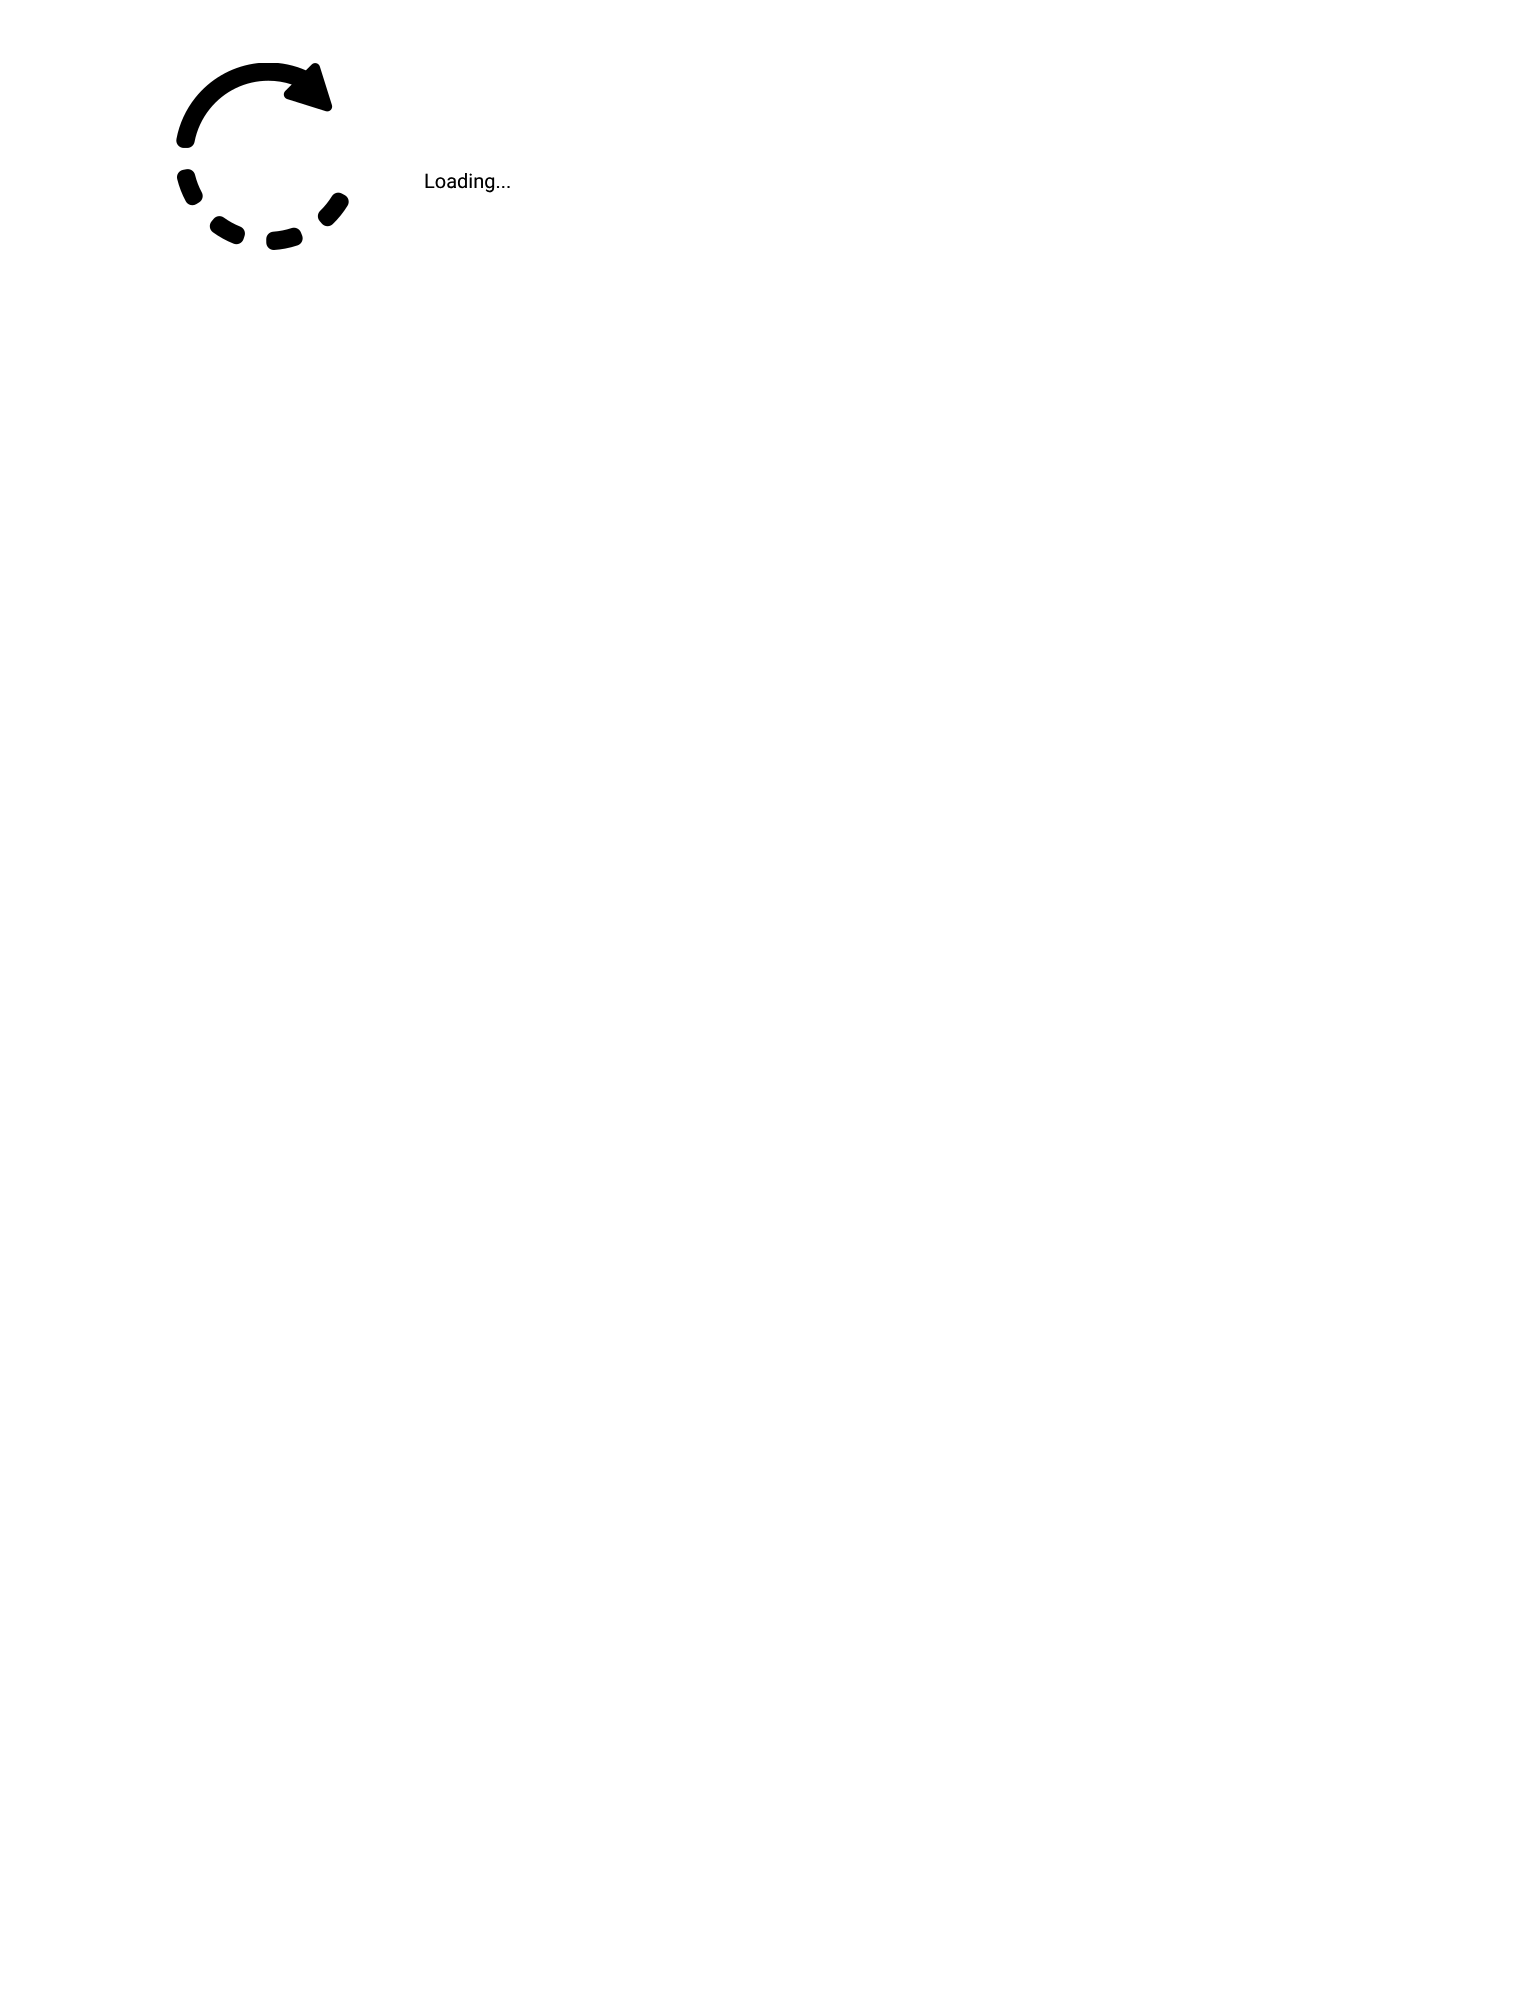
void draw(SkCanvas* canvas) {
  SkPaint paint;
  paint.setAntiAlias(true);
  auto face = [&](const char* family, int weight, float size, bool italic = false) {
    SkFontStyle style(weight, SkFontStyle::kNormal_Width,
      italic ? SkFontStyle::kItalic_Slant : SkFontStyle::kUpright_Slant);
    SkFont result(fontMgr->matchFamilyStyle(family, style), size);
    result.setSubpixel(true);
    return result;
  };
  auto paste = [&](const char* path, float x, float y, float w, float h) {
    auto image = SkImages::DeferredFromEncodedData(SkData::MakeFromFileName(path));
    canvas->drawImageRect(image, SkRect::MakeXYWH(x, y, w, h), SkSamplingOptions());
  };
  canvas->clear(0xffffffff);
  paste("img/1.png", 176, 63, 173, 187);
  auto f0 = face("Roboto", 400, 20);
  paint.setColor(0xff000000);
  canvas->drawString("Loading...", 424, 188, f0, paint);
}
